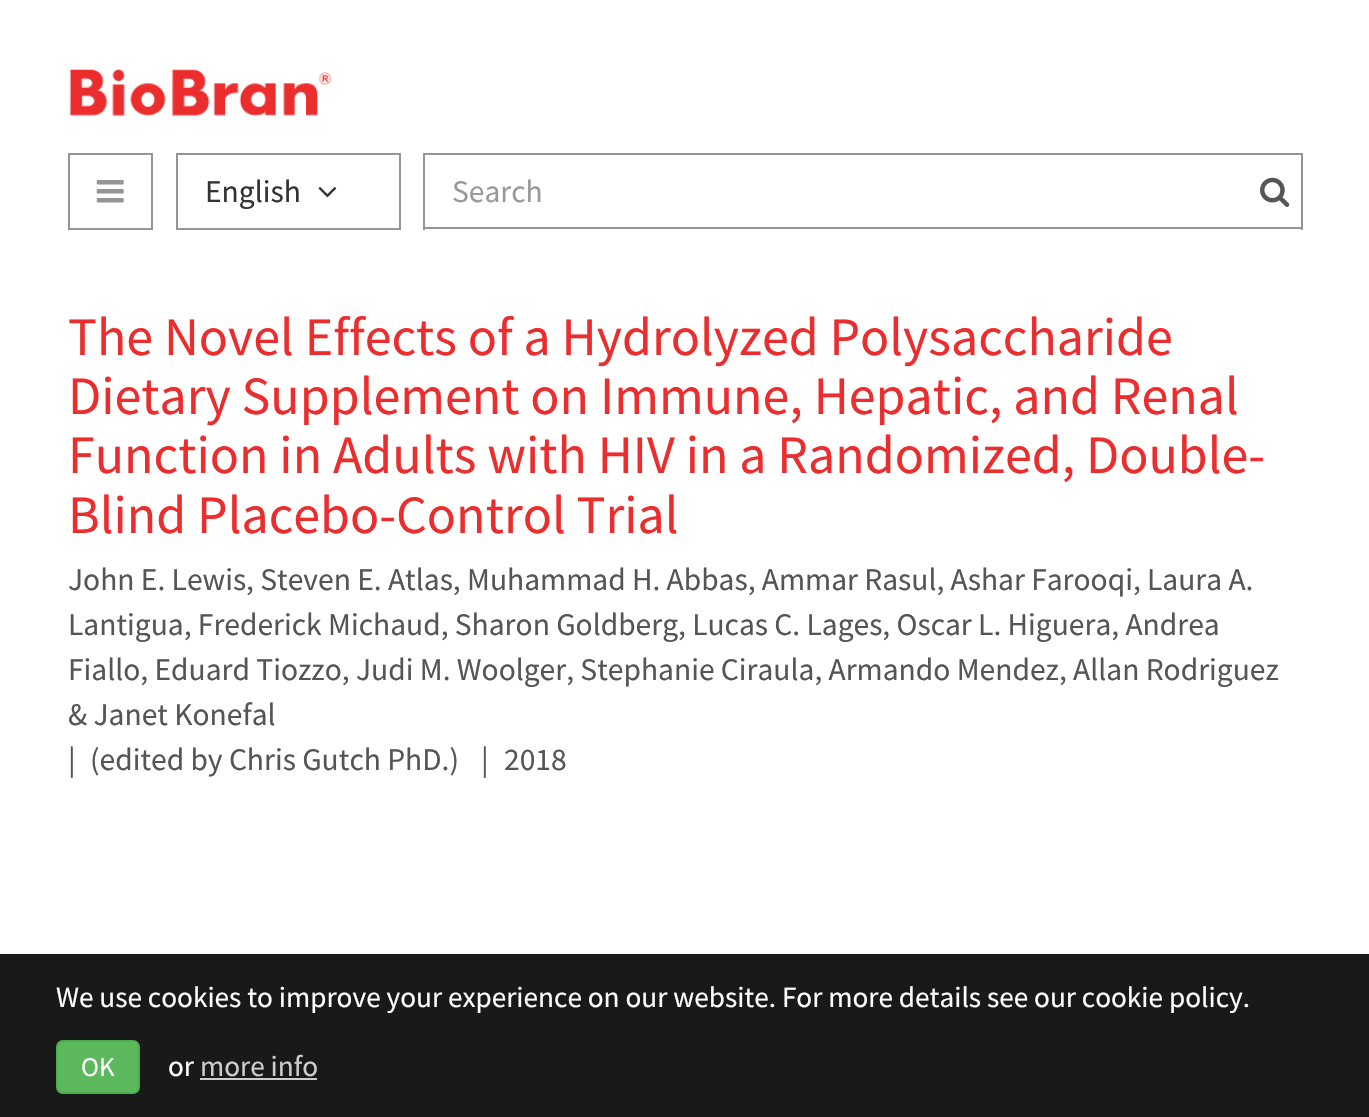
void draw(SkCanvas* canvas) {
  SkPaint paint;
  paint.setAntiAlias(true);
  auto face = [&](const char* family, int weight, float size, bool italic = false) {
    SkFontStyle style(weight, SkFontStyle::kNormal_Width,
      italic ? SkFontStyle::kItalic_Slant : SkFontStyle::kUpright_Slant);
    SkFont result(fontMgr->matchFamilyStyle(family, style), size);
    result.setSubpixel(true);
    return result;
  };
  auto paste = [&](const char* path, float x, float y, float w, float h) {
    auto image = SkImages::DeferredFromEncodedData(SkData::MakeFromFileName(path));
    canvas->drawImageRect(image, SkRect::MakeXYWH(x, y, w, h), SkSamplingOptions());
  };
  canvas->clear(0xffffffff);
  paste("img/1.png", 69, 69, 262, 47);
  paint.setStroke(true);
  paint.setStrokeWidth(2);
  paint.setColor(0xff959595);
  canvas->drawRect(SkRect::MakeXYWH(69, 154, 83, 75), paint);
  paste("img/2.png", 96, 180, 28, 23);
  canvas->drawRect(SkRect::MakeXYWH(177, 154, 223, 75), paint);
  paste("img/3.png", 318, 187, 19, 11);
  paint.setStroke(false);
  {
    const struct { float x, y, w, h; SkColor color; } items[] = {
      {423, 153, 880, 2, 0xff959595},
      {1301, 153, 2, 77, 0xff959595},
      {423, 227, 880, 2, 0xff959595},
    };
    for (auto [x, y, w, h, color] : items) {
      paint.setColor(color);
      canvas->drawRect(SkRect::MakeXYWH(x, y, w, h), paint);
    }
  }
  paste("img/4.png", 1260, 177, 30, 30);
  canvas->drawRect(SkRect::MakeXYWH(423, 153, 2, 77), paint);
  paint.setColor(0xe6000000);
  canvas->drawRect(SkRect::MakeXYWH(0, 954, 1369, 163), paint);
  paint.setColor(0xff5cb85c);
  canvas->drawRoundRect(SkRect::MakeXYWH(57, 1041, 82, 52), 6, 6, paint);
  paint.setStroke(true);
  paint.setColor(0xff4cae4c);
  canvas->drawRoundRect(SkRect::MakeXYWH(57, 1041, 82, 52), 6, 6, paint);
  paint.setStroke(false);
  paint.setColor(0xffcccccc);
  canvas->drawRect(SkRect::MakeXYWH(200, 1078, 117, 2), paint);
  auto f0 = face("Source Sans Pro", 400, 31.5f);
  paint.setColor(0xff333333);
  canvas->drawString("English", 205, 202, f0, paint);
  paint.setColor(0xff999999);
  canvas->drawString("Search", 452, 202, f0, paint);
  auto f1 = face("Source Sans Pro", 400, 54);
  paint.setColor(0xffeb2d2e);
  {
    const struct { const char* s; float x, y; } items[] = {
      {"The Novel Effects of a Hydrolyzed Polysaccharide", 68, 355},
      {"Dietary Supplement on Immune, Hepatic, and Renal", 68, 414},
      {"Function in Adults with HIV in a Randomized, Double-", 68, 473},
      {"Blind Placebo-Control Trial", 68, 533},
    };
    for (auto [s, x, y] : items) {
      canvas->drawString(s, x, y, f1, paint);
    }
  }
  paint.setColor(0xff555555);
  {
    const struct { const char* s; float x, y; } items[] = {
      {"John E. Lewis, Steven E. Atlas, Muhammad H. Abbas, Ammar Rasul, Ashar Farooqi, Laura A.", 68, 590},
      {"Lantigua, Frederick Michaud, Sharon Goldberg, Lucas C. Lages, Oscar L. Higuera, Andrea", 68, 635},
      {"Fiallo, Eduard Tiozzo, Judi M. Woolger, Stephanie Ciraula, Armando Mendez, Allan Rodriguez", 68, 680},
      {"& Janet Konefal", 68, 725},
      {"|", 68, 770},
      {"(edited by Chris Gutch PhD.)", 90, 770},
      {"|", 481, 770},
      {"2018", 504, 770},
    };
    for (auto [s, x, y] : items) {
      canvas->drawString(s, x, y, f0, paint);
    }
  }
  auto f2 = face("Source Sans Pro", 400, 29.25f);
  paint.setColor(0xffffffff);
  canvas->drawString("We use cookies to improve your experience on our website. For more details see our cookie policy.", 56, 1007, f2, paint);
  auto f3 = face("Source Sans Pro", 400, 27);
  canvas->drawString("OK", 81, 1076, f3, paint);
  canvas->drawString("or", 168, 1076, f2, paint);
  paint.setColor(0xffcccccc);
  canvas->drawString("more info", 200, 1076, f2, paint);
}
